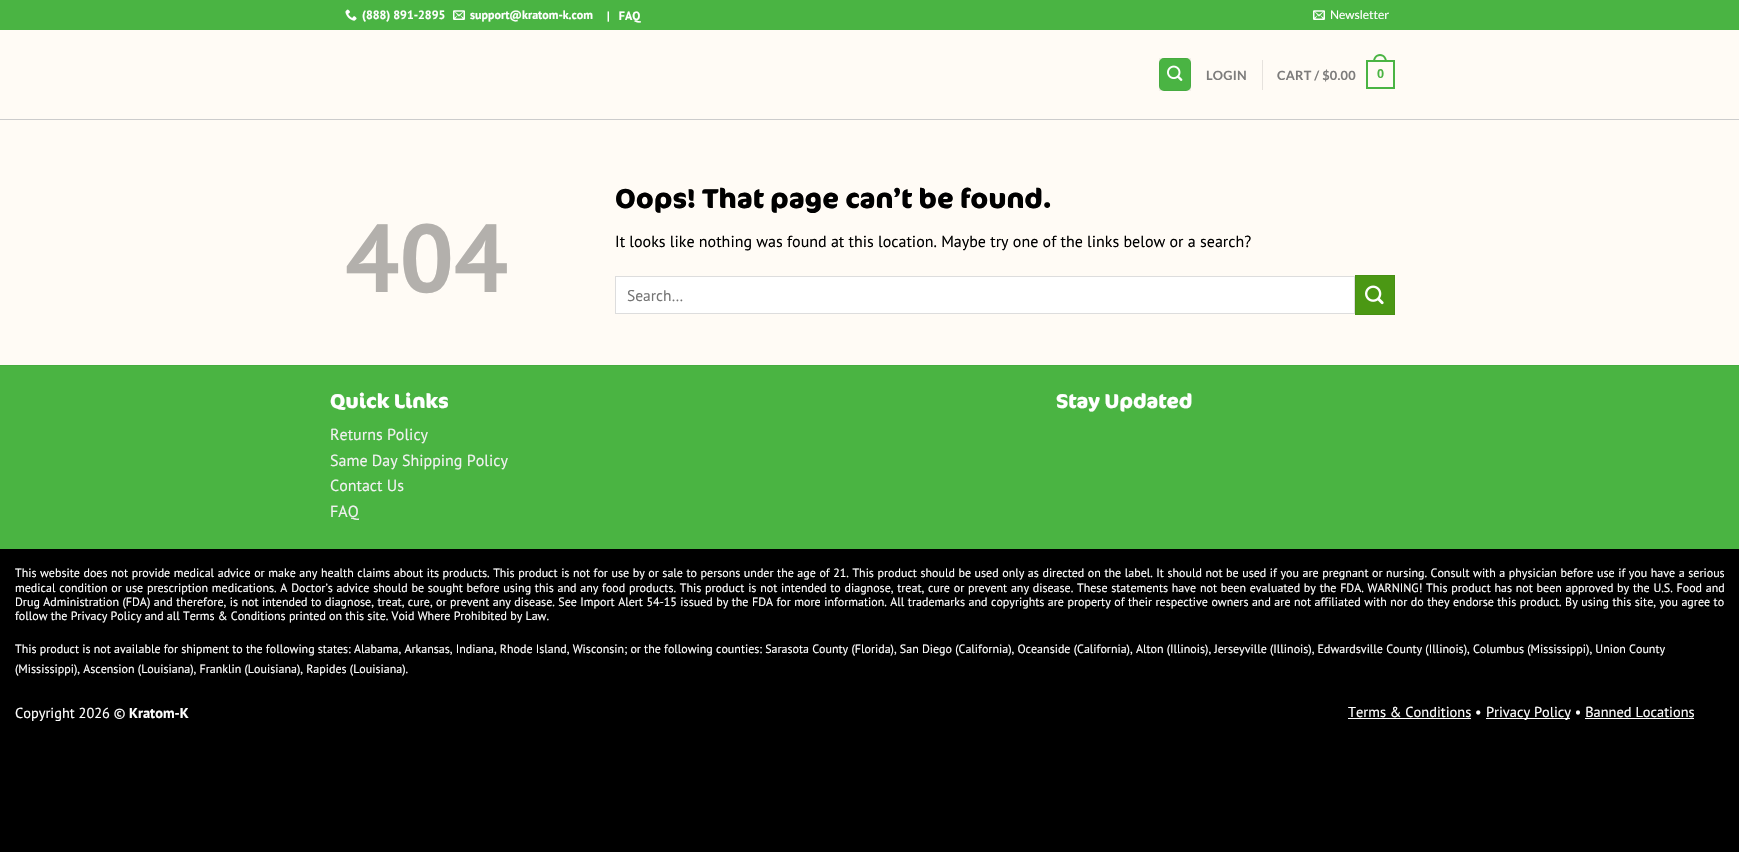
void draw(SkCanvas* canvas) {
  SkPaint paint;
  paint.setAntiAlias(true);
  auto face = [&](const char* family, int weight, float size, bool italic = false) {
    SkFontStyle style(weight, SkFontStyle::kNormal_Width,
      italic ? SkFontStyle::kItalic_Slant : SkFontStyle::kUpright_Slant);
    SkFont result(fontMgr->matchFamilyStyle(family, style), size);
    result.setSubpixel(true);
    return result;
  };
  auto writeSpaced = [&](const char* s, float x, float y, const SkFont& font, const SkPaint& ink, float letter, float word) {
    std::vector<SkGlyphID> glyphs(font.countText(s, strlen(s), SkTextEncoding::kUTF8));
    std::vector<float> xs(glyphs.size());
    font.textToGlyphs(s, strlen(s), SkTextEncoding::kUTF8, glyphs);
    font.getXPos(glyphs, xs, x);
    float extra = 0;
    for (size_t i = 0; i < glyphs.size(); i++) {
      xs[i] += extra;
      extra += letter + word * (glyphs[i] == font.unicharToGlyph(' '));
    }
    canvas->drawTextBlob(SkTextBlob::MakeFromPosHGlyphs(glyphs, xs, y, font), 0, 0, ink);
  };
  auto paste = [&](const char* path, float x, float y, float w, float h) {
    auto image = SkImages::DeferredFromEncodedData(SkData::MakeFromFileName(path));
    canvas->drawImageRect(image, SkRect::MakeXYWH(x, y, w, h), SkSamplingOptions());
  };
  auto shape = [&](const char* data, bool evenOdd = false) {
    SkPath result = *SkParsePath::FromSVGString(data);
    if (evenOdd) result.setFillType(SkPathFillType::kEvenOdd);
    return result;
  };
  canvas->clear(0xff000000);
  paint.setColor(0xfffffbf5);
  canvas->drawRect(SkRect::MakeXYWH(0, 30, 1739, 335), paint);
  paint.setColor(0xff4ab443);
  canvas->drawRect(SkRect::MakeXYWH(0, 0, 1739, 30), paint);
  paste("img/1.png", 345, 9, 12, 12);
  paste("img/2.png", 453, 10, 12, 10);
  paste("img/2.png", 1313, 10, 12, 10);
  paint.setColor(0xffcccccc);
  canvas->drawRect(SkRect::MakeXYWH(0, 119, 1739, 1), paint);
  paint.setColor(0xff4ab443);
  canvas->drawRoundRect(SkRect::MakeXYWH(1159, 58, 32, 33), 5, 5, paint);
  paint.setStroke(true);
  paint.setStrokeWidth(1);
  paint.setColor(0x0d000000);
  canvas->drawRect(SkRect::MakeXYWH(1159.5f, 58.5f, 31, 32), paint);
  paste("img/3.png", 1167, 65, 16, 16);
  paint.setStroke(false);
  paint.setColor(0xffe6e2dd);
  canvas->drawRect(SkRect::MakeXYWH(1262, 60, 1, 30), paint);
  paint.setStroke(true);
  paint.setStrokeWidth(2);
  paint.setColor(0xff4ab443);
  canvas->drawRect(SkRect::MakeXYWH(1367, 61, 27, 27), paint);
  paint.setStroke(false);
  canvas->drawPath(shape("M1380 54C1384.5 54 1387 58 1387 62H1373C1373 58 1375.5 54 1380 54ZM1380 56C1383.5 56 1385 59 1385 62H1375C1375 59 1376.5 56 1380 56Z", true), paint);
  paint.setColor(0xffffffff);
  canvas->drawRect(SkRect::MakeXYWH(615.5f, 276.5f, 739, 37), paint);
  paint.setStroke(true);
  paint.setStrokeWidth(1);
  paint.setColor(0xffdddddd);
  canvas->drawRect(SkRect::MakeXYWH(615.5f, 276.5f, 739, 37), paint);
  paint.setStroke(false);
  paint.setColor(0xff4b9814);
  canvas->drawRect(SkRect::MakeXYWH(1355.5f, 275.5f, 39, 39), paint);
  paint.setStroke(true);
  paint.setColor(0xff479013);
  canvas->drawRect(SkRect::MakeXYWH(1355.5f, 275.5f, 39, 39), paint);
  paste("img/4.png", 1365, 285, 19, 20);
  paint.setStroke(false);
  {
    const struct { float x, y, w, h; SkColor color; } items[] = {
      {0, 366, 1739, 183, 0xff4ab442},
      {0, 365, 1739, 1, 0xff46ab3f},
      {1348, 718, 123, 1, 0xffffffff},
      {1486, 718, 84, 1, 0xffffffff},
      {1585, 718, 109, 1, 0xffffffff},
    };
    for (auto [x, y, w, h, color] : items) {
      paint.setColor(color);
      canvas->drawRect(SkRect::MakeXYWH(x, y, w, h), paint);
    }
  }
  auto f0 = face("PT Sans", 700, 12);
  {
    const struct { const char* s; float x, y; } items[] = {
      {"(888) 891-2895", 362, 19},
      {"support@kratom-k.com", 470, 19},
      {"|   FAQ", 607, 20},
    };
    for (auto [s, x, y] : items) {
      canvas->drawString(s, x, y, f0, paint);
    }
  }
  auto f1 = face("Lato", 400, 12);
  canvas->drawString("Newsletter", 1330, 19, f1, paint);
  auto f2 = face("Lato", 700, 12.75f);
  paint.setColor(0xff7d7c7b);
  writeSpaced("LOGIN", 1206, 80, f2, paint, 0.25f, 0);
  writeSpaced("CART / $0.00", 1277, 80, f2, paint, 0.25f, 0);
  auto f3 = face("Liberation Sans", 700, 12.75f);
  paint.setColor(0xff4ab443);
  writeSpaced("0", 1377, 78, f3, paint, 0.25f, 0);
  auto f4 = face("PT Sans", 700, 96);
  paint.setColor(0xffb3b0ac);
  canvas->drawString("404", 345, 292, f4, paint);
  auto f5 = face("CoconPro", 700, 27.25f);
  paint.setColor(0xff000000);
  canvas->drawString("Oops! That page can’t be found.", 615, 208, f5, paint);
  auto f6 = face("PT Sans", 400, 16);
  canvas->drawString("It looks like nothing was found at this location. Maybe try one of the links below or a search?", 615, 247, f6, paint);
  auto f7 = face("PT Sans", 400, 15.5f);
  paint.setColor(0xff757575);
  canvas->drawString("Search…", 627, 301, f7, paint);
  auto f8 = face("CoconPro", 700, 20);
  paint.setColor(0xffffffff);
  canvas->drawString("Quick Links", 330, 408, f8, paint);
  paint.setColor(0xfff1f1f1);
  {
    const struct { const char* s; float x, y; } items[] = {
      {"Returns Policy", 330, 440},
      {"Same Day Shipping Policy", 330, 466},
      {"Contact Us", 330, 491},
      {"FAQ", 330, 517},
    };
    for (auto [s, x, y] : items) {
      canvas->drawString(s, x, y, f6, paint);
    }
  }
  paint.setColor(0xffffffff);
  canvas->drawString("Stay Updated", 1056, 408, f8, paint);
  auto f9 = face("PT Sans", 400, 12);
  writeSpaced("This website does not provide medical advice or make any health claims about its products. This product is not for use by or sale to persons under the age of 21. This product should be used only as directed on the label. It should not be used if you are pregnant or nursing. Consult with a physician before use if you have a serious", 15, 577, f9, paint, 0, 0.35f);
  writeSpaced("medical condition or use prescription medications. A Doctor’s advice should be sought before using this and any food products. This product is not intended to diagnose, treat, cure or prevent any disease. These statements have not been evaluated by the FDA. WARNING! This product has not been approved by the U.S. Food and", 15, 592, f9, paint, 0, 0.55f);
  writeSpaced("Drug Administration (FDA) and therefore, is not intended to diagnose, treat, cure, or prevent any disease. See Import Alert 54-15 issued by the FDA for more information. All trademarks and copyrights are property of their respective owners and are not affiliated with nor do they endorse this product. By using this site, you agree to", 15, 606, f9, paint, 0, 0.28f);
  {
    const struct { const char* s; float x, y; } items[] = {
      {"follow the Privacy Policy and all Terms & Conditions printed on this site. Void Where Prohibited by Law.", 15, 620},
      {"This product is not available for shipment to the following states: Alabama, Arkansas, Indiana, Rhode Island, Wisconsin; or the following counties: Sarasota County (Florida), San Diego (California), Oceanside (California), Alton (Illinois), Jerseyville (Illinois), Edwardsville County (Illinois), Columbus (Mississippi), Union County", 15, 653},
      {"(Mississippi), Ascension (Louisiana), Franklin (Louisiana), Rapides (Louisiana).", 15, 673},
    };
    for (auto [s, x, y] : items) {
      canvas->drawString(s, x, y, f9, paint);
    }
  }
  auto f10 = face("PT Sans", 400, 14.4f);
  canvas->drawString("Copyright 2026 ©", 15, 718, f10, paint);
  auto f11 = face("PT Sans", 700, 14.4f);
  canvas->drawString("Kratom-K", 129, 718, f11, paint);
  canvas->drawString("Terms & Conditions •", 1348, 717, f10, paint);
  canvas->drawString("Privacy Policy • Banned Locations", 1486, 717, f10, paint);
}
